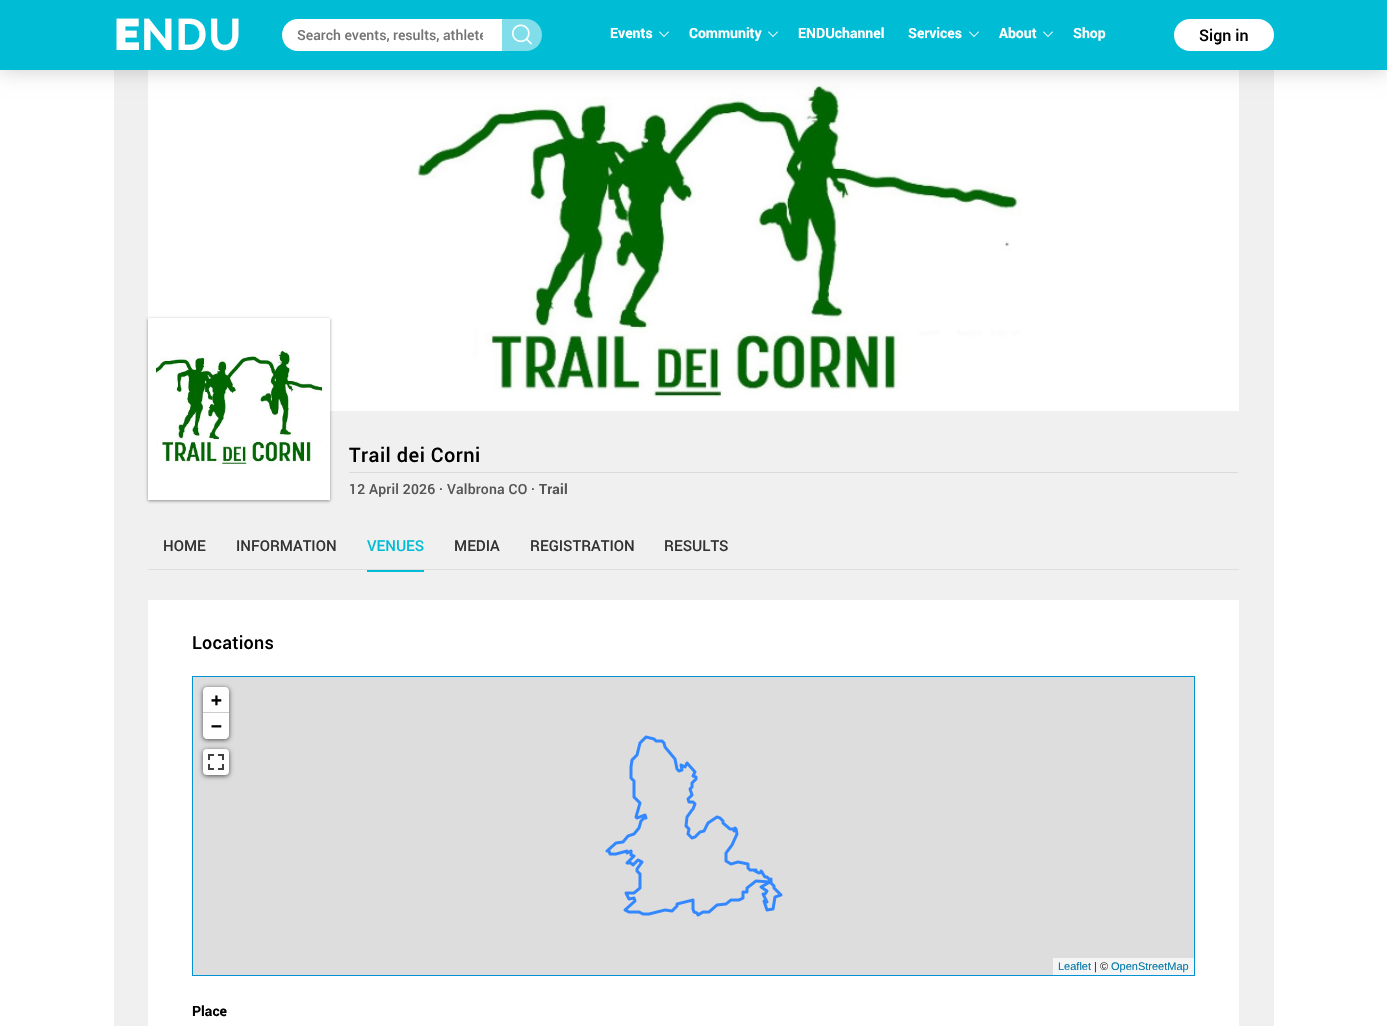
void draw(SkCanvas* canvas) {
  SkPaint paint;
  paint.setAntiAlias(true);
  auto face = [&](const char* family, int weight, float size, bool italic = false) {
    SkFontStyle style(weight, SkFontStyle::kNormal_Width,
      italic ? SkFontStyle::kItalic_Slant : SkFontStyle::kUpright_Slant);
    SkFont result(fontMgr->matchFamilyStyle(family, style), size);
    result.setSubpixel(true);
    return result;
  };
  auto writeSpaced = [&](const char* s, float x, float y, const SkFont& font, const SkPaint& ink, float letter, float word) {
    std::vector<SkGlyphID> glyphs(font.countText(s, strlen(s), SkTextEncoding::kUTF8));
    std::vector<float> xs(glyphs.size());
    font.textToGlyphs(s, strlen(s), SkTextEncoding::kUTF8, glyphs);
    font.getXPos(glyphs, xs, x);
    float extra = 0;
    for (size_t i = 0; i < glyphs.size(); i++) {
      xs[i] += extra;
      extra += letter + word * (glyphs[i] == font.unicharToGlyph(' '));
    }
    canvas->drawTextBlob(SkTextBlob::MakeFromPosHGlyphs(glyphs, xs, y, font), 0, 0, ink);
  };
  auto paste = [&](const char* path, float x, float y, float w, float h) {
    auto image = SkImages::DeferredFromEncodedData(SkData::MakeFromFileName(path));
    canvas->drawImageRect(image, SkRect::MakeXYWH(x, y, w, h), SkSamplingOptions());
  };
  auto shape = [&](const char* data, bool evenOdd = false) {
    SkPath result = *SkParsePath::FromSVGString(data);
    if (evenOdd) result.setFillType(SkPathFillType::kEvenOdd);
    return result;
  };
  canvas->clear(0xffffffff);
  paint.setColor(0xfff0f0f0);
  canvas->drawRect(SkRect::MakeXYWH(114, 70, 1160, 956), paint);
  paste("img/3.png", 148, 70, 1091, 341);
  paint.setColor(0x33000000);
  paint.setMaskFilter(SkMaskFilter::MakeBlur(kNormal_SkBlurStyle, 10));
  canvas->drawRect(SkRect::MakeXYWH(0, 0, 1387, 70), paint);
  paint.setMaskFilter(nullptr);
  paint.setColor(0xff00bcd4);
  canvas->drawRect(SkRect::MakeXYWH(0, 0, 1387, 70), paint);
  paint.setColor(0xffffffff);
  canvas->drawPath(shape("M298 19H502V51H298C289 51 282 44 282 35C282 26 289 19 298 19Z"), paint);
  paint.setColor(0xff80deea);
  canvas->drawPath(shape("M502 19H526C535 19 542 26 542 35C542 44 535 51 526 51H502Z"), paint);
  paste("img/1.png", 512, 24, 20, 21);
  paste("img/2.png", 659, 31, 10, 6);
  paste("img/2.png", 768, 31, 10, 6);
  paste("img/2.png", 969, 31, 10, 6);
  paste("img/2.png", 1043, 31, 10, 6);
  paint.setColor(0xffffffff);
  canvas->drawRoundRect(SkRect::MakeXYWH(1174, 19, 100, 32), 16, 16, paint);
  paint.setColor(0x66000000);
  paint.setMaskFilter(SkMaskFilter::MakeBlur(kNormal_SkBlurStyle, 1.5f));
  canvas->drawRect(SkRect::MakeXYWH(148, 319, 182, 182), paint);
  paint.setMaskFilter(nullptr);
  paint.setColor(0xffffffff);
  canvas->drawRect(SkRect::MakeXYWH(148, 318, 182, 182), paint);
  paste("img/4.png", 156, 348, 166, 118);
  {
    const struct { float x, y, w, h; SkColor color; } items[] = {
      {349, 472, 889, 1, 0xffdadada},
      {148, 569, 1091, 1, 0xffdedede},
      {367, 570, 57, 2, 0xff00bcd4},
      {148, 600, 1091, 426, 0xffffffff},
    };
    for (auto [x, y, w, h, color] : items) {
      paint.setColor(color);
      canvas->drawRect(SkRect::MakeXYWH(x, y, w, h), paint);
    }
  }
  paint.setColor(0xffdddddd);
  canvas->drawRect(SkRect::MakeXYWH(192.5f, 676.5f, 1002, 299), paint);
  paint.setStroke(true);
  paint.setStrokeWidth(1);
  paint.setColor(0xff0092d2);
  canvas->drawRect(SkRect::MakeXYWH(192.5f, 676.5f, 1002, 299), paint);
  paint.setStroke(false);
  paint.setColor(0xa6000000);
  paint.setMaskFilter(SkMaskFilter::MakeBlur(kNormal_SkBlurStyle, 2.5f));
  canvas->drawRoundRect(SkRect::MakeXYWH(203, 688, 26, 52), 4, 4, paint);
  paint.setMaskFilter(nullptr);
  paint.setColor(0xffffffff);
  canvas->drawPath(shape("M207 687H225C227 687 229 689 229 691V713H203V691C203 689 205 687 207 687Z"), paint);
  paint.setColor(0xffcccccc);
  canvas->drawRect(SkRect::MakeXYWH(203, 712, 26, 1), paint);
  paint.setColor(0xffffffff);
  canvas->drawPath(shape("M203 713H229V735C229 737 227 739 225 739H207C205 739 203 737 203 735Z"), paint);
  paint.setColor(0xa6000000);
  paint.setMaskFilter(SkMaskFilter::MakeBlur(kNormal_SkBlurStyle, 2.5f));
  canvas->drawRoundRect(SkRect::MakeXYWH(203, 750, 26, 26), 4, 4, paint);
  paint.setMaskFilter(nullptr);
  paint.setColor(0xffffffff);
  canvas->drawRoundRect(SkRect::MakeXYWH(203, 749, 26, 26), 4, 4, paint);
  paste("img/5.png", 208, 754, 16, 16);
  paint.setColor(0xfff5f5f5);
  canvas->drawRect(SkRect::MakeXYWH(1053, 958, 141, 17), paint);
  paste("img/6.png", 605, 735, 178, 182);
  auto f0 = face("Raleway", 900, 44);
  paint.setColor(0xffffffff);
  writeSpaced("E", 114, 50, f0, paint, 1, 0);
  auto f1 = face("Raleway", 700, 44);
  writeSpaced("NDU", 141, 50, f1, paint, 1, 0);
  canvas->save();
  canvas->clipRect(SkRect::MakeXYWH(297, 25, 186, 19));
  auto f2 = face("Roboto", 500, 14);
  paint.setColor(0xff757575);
  canvas->drawString("Search events, results, athlete", 297, 40, f2, paint);
  canvas->restore();
  auto f3 = face("Roboto", 700, 14);
  paint.setColor(0xffffffff);
  {
    const struct { const char* s; float x, y; } items[] = {
      {"Events", 610, 38},
      {"Community", 689, 38},
      {"ENDUchannel", 798, 38},
      {"Services", 908, 38},
      {"About", 999, 38},
      {"Shop", 1073, 38},
    };
    for (auto [s, x, y] : items) {
      canvas->drawString(s, x, y, f3, paint);
    }
  }
  auto f4 = face("Roboto", 500, 16);
  paint.setColor(0xff000000);
  canvas->drawString("Sign in", 1199, 41, f4, paint);
  auto f5 = face("Roboto", 500, 20);
  writeSpaced("Trail dei Corni", 349, 462, f5, paint, 0.5f, 0);
  paint.setColor(0xff555555);
  writeSpaced("12 April 2026 · Valbrona CO ·", 349, 494, f2, paint, 0.2f, 0);
  writeSpaced("Trail", 539, 494, f3, paint, 0.2f, 0);
  auto f6 = face("Roboto", 500, 15);
  paint.setColor(0xff333333);
  canvas->drawString("HOME", 163, 551, f6, paint);
  canvas->drawString("INFORMATION", 236, 551, f6, paint);
  paint.setColor(0xff00bcd4);
  canvas->drawString("VENUES", 367, 551, f6, paint);
  paint.setColor(0xff333333);
  {
    const struct { const char* s; float x, y; } items[] = {
      {"MEDIA", 454, 551},
      {"REGISTRATION", 530, 551},
      {"RESULTS", 664, 551},
    };
    for (auto [s, x, y] : items) {
      canvas->drawString(s, x, y, f6, paint);
    }
  }
  auto f7 = face("Roboto", 500, 18);
  paint.setColor(0xff000000);
  writeSpaced("Locations", 192, 649, f7, paint, 0.25f, 0);
  auto f8 = face("DejaVu Sans Mono", 700, 18);
  canvas->drawString("+", 211, 706, f8, paint);
  canvas->drawString("−", 211, 732, f8, paint);
  auto f9 = face("Liberation Sans", 400, 11);
  paint.setColor(0xff0078a8);
  canvas->drawString("Leaflet", 1058, 970, f9, paint);
  paint.setColor(0xff333333);
  canvas->drawString("| ©", 1094, 970, f9, paint);
  paint.setColor(0xff0078a8);
  canvas->drawString("OpenStreetMap", 1111, 970, f9, paint);
  paint.setColor(0xff000000);
  canvas->drawString("Place", 192, 1016, f3, paint);
}
